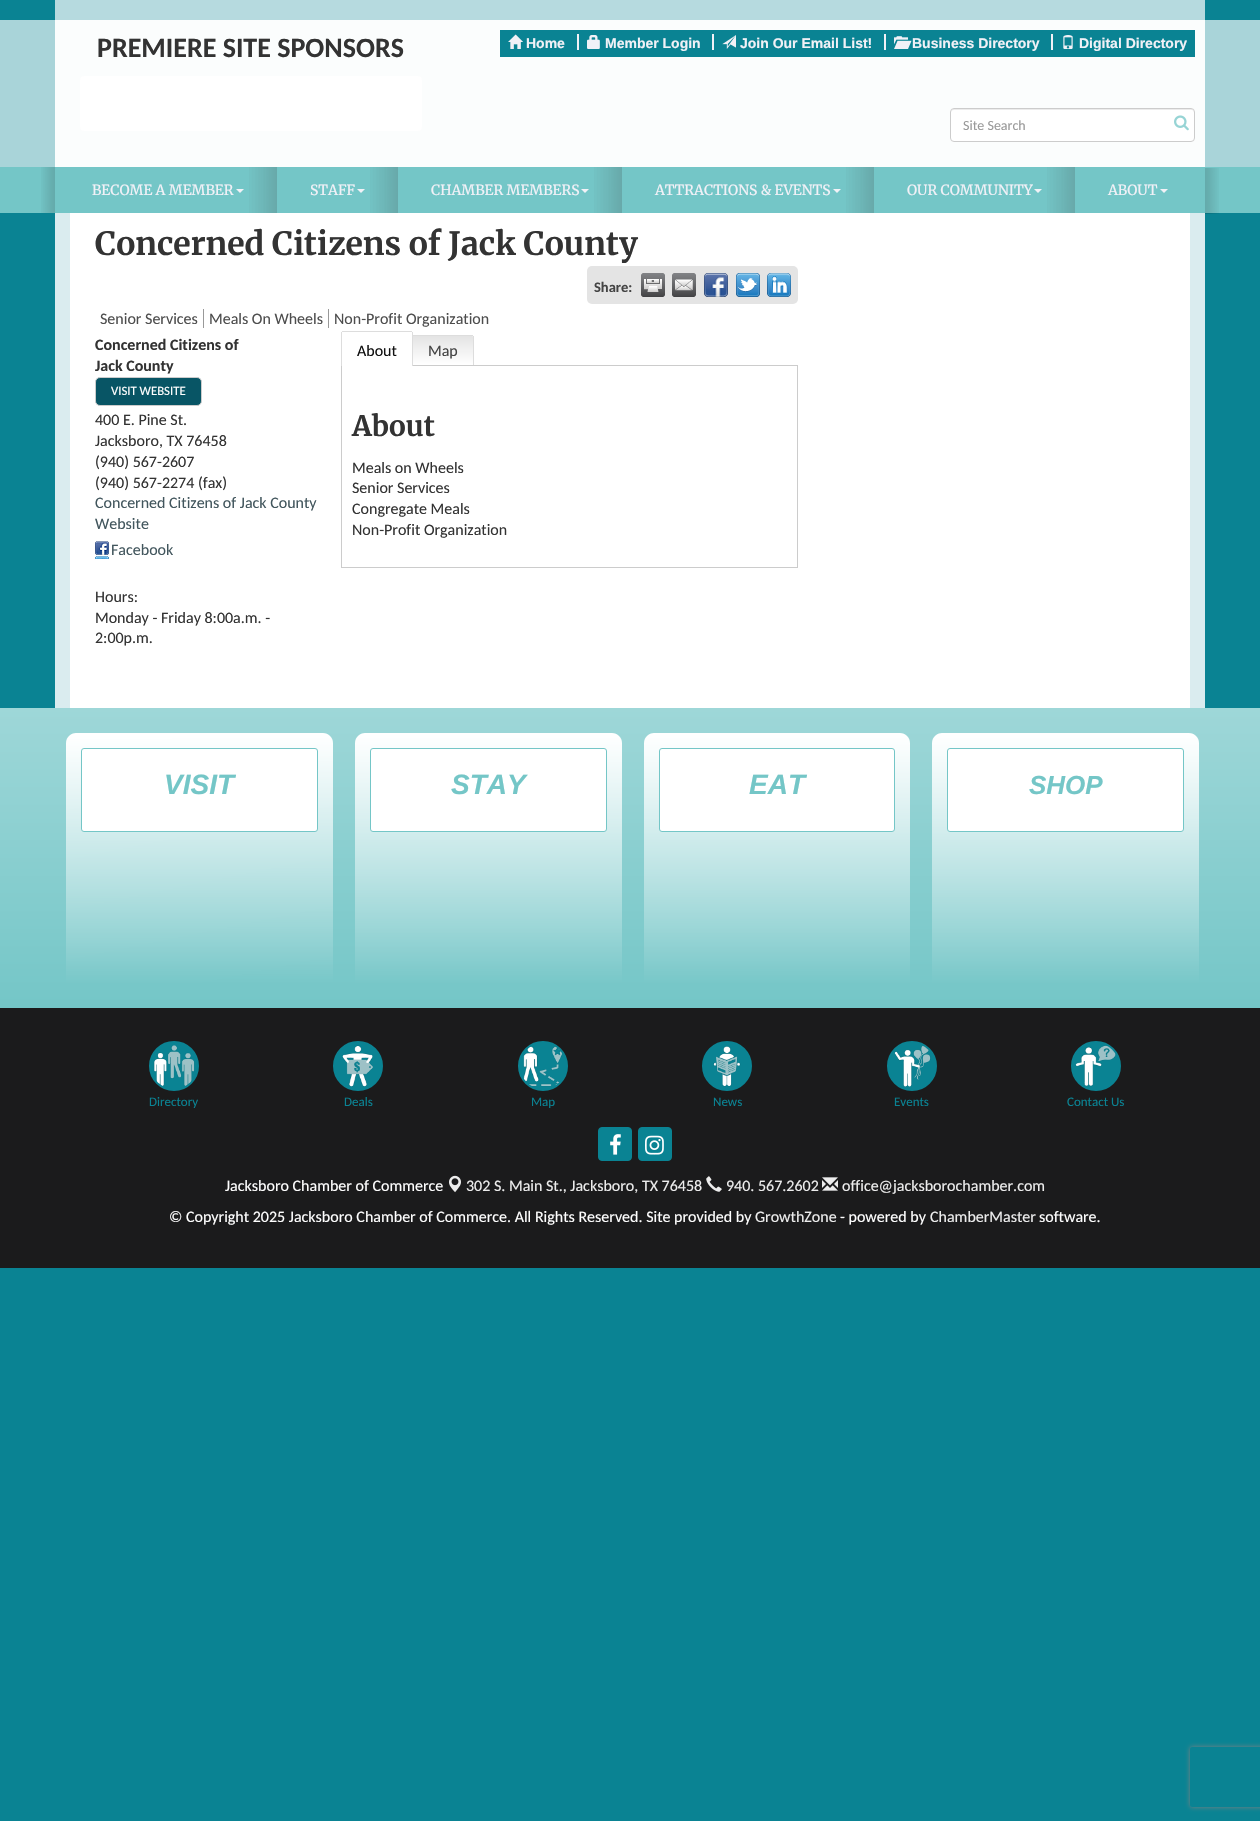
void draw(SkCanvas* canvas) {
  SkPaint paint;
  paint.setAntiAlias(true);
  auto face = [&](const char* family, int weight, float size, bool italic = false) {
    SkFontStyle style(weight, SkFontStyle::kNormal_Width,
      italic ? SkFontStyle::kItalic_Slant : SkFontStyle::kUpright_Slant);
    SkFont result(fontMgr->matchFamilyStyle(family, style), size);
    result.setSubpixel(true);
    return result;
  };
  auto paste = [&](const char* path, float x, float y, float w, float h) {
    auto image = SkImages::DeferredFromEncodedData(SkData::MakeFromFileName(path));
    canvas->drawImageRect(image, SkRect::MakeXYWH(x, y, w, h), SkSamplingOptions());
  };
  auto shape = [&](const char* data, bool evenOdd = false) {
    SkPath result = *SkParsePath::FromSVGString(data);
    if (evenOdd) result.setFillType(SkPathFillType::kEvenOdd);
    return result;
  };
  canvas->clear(0xff0a8393);
  {
    const struct { float x, y, w, h; SkColor color; } items[] = {
      {55, 0, 1150, 20, 0xffb6dadf},
      {0, 20, 1260, 147, 0xffa9d4d9},
      {55, 20, 1150, 147, 0xfffbfdfd},
    };
    for (auto [x, y, w, h, color] : items) {
      paint.setColor(color);
      canvas->drawRect(SkRect::MakeXYWH(x, y, w, h), paint);
    }
  }
  paint.setColor(0xffffffff);
  canvas->drawRoundRect(SkRect::MakeXYWH(80, 76, 342, 55), 4, 4, paint);
  paint.setColor(0xff0a8393);
  canvas->drawRect(SkRect::MakeXYWH(500, 30, 695, 27), paint);
  paste("img/1.png", 508, 34, 15, 15);
  paint.setColor(0xfff1f1f7);
  canvas->drawRect(SkRect::MakeXYWH(577, 34, 2, 16), paint);
  paste("img/2.png", 587, 35, 13, 14);
  canvas->drawRect(SkRect::MakeXYWH(712, 34, 2, 16), paint);
  paste("img/3.png", 722, 35, 14, 14);
  canvas->drawRect(SkRect::MakeXYWH(884, 34, 2, 16), paint);
  paste("img/4.png", 894, 36, 18, 13);
  canvas->drawRect(SkRect::MakeXYWH(1051, 34, 2, 16), paint);
  paste("img/5.png", 1063, 35, 10, 14);
  paint.setColor(0xffffffff);
  canvas->drawRoundRect(SkRect::MakeXYWH(950, 108, 245, 34), 4, 4, paint);
  paint.setColor(0xffececec);
  canvas->drawPath(shape("M954 110H1192L1194 111V113C1194 111 1193 109 1191 109H954C952 109 951 111 951 113C951 111 952 110 954 110Z"), paint);
  paint.setStroke(true);
  paint.setStrokeWidth(1);
  paint.setColor(0xffcccccc);
  canvas->drawRoundRect(SkRect::MakeXYWH(950.5f, 108.5f, 244, 33), 3.5f, 3.5f, paint);
  paste("img/6.png", 1174, 115, 15, 16);
  paint.setStroke(false);
  paint.setColor(0xff74c6c7);
  canvas->drawRect(SkRect::MakeXYWH(0, 167, 1260, 46), paint);
  paste("img/7.png", 41, 167, 14, 46);
  paste("img/8.png", 249, 167, 28, 46);
  paint.setColor(0xfff2f2f7);
  canvas->drawPath(shape("M236 189H244L240 193Z"), paint);
  paste("img/8.png", 370, 167, 28, 46);
  canvas->drawPath(shape("M357 189H365L361 193Z"), paint);
  paste("img/8.png", 594, 167, 28, 46);
  canvas->drawPath(shape("M581 189H589L585 193Z"), paint);
  paste("img/8.png", 846, 167, 28, 46);
  canvas->drawPath(shape("M833 189H841L837 193Z"), paint);
  paste("img/8.png", 1047, 167, 28, 46);
  canvas->drawPath(shape("M1034 189H1042L1038 193Z"), paint);
  canvas->drawPath(shape("M1160 189H1168L1164 193Z"), paint);
  paste("img/9.png", 1205, 168, 14, 46);
  paint.setColor(0xffdaecef);
  canvas->drawRect(SkRect::MakeXYWH(55, 213, 1150, 495), paint);
  paint.setColor(0xffffffff);
  canvas->drawRect(SkRect::MakeXYWH(70, 213, 1120, 495), paint);
  paint.setColor(0xffe4e4e4);
  canvas->drawRoundRect(SkRect::MakeXYWH(587, 266, 211, 38), 5, 5, paint);
  paste("img/10.png", 641, 273, 24, 24);
  paste("img/11.png", 672, 273, 24, 24);
  paste("img/12.png", 704, 273, 24, 24);
  paste("img/13.png", 736, 273, 24, 24);
  paste("img/14.png", 767, 273, 24, 24);
  paint.setColor(0xff999999);
  canvas->drawRect(SkRect::MakeXYWH(203, 309, 1, 19), paint);
  canvas->drawRect(SkRect::MakeXYWH(328, 309, 1, 19), paint);
  paint.setColor(0xff085565);
  canvas->drawRoundRect(SkRect::MakeXYWH(95.5f, 377.5f, 106, 28), 4.5f, 4.5f, paint);
  paint.setStroke(true);
  paint.setColor(0xffcccccc);
  canvas->drawRoundRect(SkRect::MakeXYWH(95.5f, 377.5f, 106, 28), 4.5f, 4.5f, paint);
  paste("img/15.png", 95, 541, 14, 18);
  canvas->drawRect(SkRect::MakeXYWH(341.5f, 365.5f, 456, 202), paint);
  paint.setStroke(false);
  paint.setColor(0xffffffff);
  canvas->drawPath(shape("M343 332H411C411.5 332 412 332.5 412 333V366H342V333C342 332.5 342.5 332 343 332Z"), paint);
  {
    const struct { float x, y, w, h; SkColor color; } items[] = {
      {342, 331, 70, 1, 0xffdddddd},
      {412, 332, 1, 34, 0xffdddddd},
      {341, 332, 1, 34, 0xffdddddd},
    };
    for (auto [x, y, w, h, color] : items) {
      paint.setColor(color);
      canvas->drawRect(SkRect::MakeXYWH(x, y, w, h), paint);
    }
  }
  {
    const SkColor colors[] = {0xffe4e4e4, 0xffffffff};
    const float stops[] = {0, 1};
    const SkPoint ends[] = {{443, 336}, {443, 365}};
    paint.setShader(SkGradientShader::MakeLinear(ends, colors, stops, 2, SkTileMode::kClamp));
    paint.setAlpha(255);
  }
  canvas->drawPath(shape("M413 336H472C472.5 336 473 336.5 473 337V365H413Z"), paint);
  paint.setShader(nullptr);
  paint.setColor(0xffdddddd);
  canvas->drawRect(SkRect::MakeXYWH(413, 335, 60, 1), paint);
  canvas->drawRect(SkRect::MakeXYWH(473, 336, 1, 29), paint);
  {
    const SkColor colors[] = {0xff9ed7d8, 0xff74c6c7};
    const float stops[] = {0, 1};
    const SkPoint ends[] = {{630, 708}, {630, 1008}};
    paint.setShader(SkGradientShader::MakeLinear(ends, colors, stops, 2, SkTileMode::kClamp));
    paint.setAlpha(255);
  }
  canvas->drawRect(SkRect::MakeXYWH(0, 708, 1260, 300), paint);
  {
    const SkColor colors[] = {0xffffffff, 0x00ffffff};
    const float stops[] = {0, 1};
    const SkPoint ends[] = {{199, 733}, {200, 983}};
    paint.setShader(SkGradientShader::MakeLinear(ends, colors, stops, 2, SkTileMode::kClamp));
    paint.setAlpha(255);
  }
  canvas->drawPath(shape("M76 733H323C328.5 733 333 737.5 333 743V983H66V743C66 737.5 70.5 733 76 733Z"), paint);
  paint.setShader(nullptr);
  paint.setColor(0xffffffff);
  canvas->drawRoundRect(SkRect::MakeXYWH(81.5f, 748.5f, 236, 83), 2.5f, 2.5f, paint);
  paint.setStroke(true);
  paint.setColor(0xff74c6c7);
  canvas->drawRoundRect(SkRect::MakeXYWH(81.5f, 748.5f, 236, 83), 2.5f, 2.5f, paint);
  paint.setStroke(false);
  {
    const SkColor colors[] = {0xffffffff, 0x00ffffff};
    const float stops[] = {0, 1};
    const SkPoint ends[] = {{489, 733}, {489, 983}};
    paint.setShader(SkGradientShader::MakeLinear(ends, colors, stops, 2, SkTileMode::kClamp));
    paint.setAlpha(255);
  }
  canvas->drawPath(shape("M365 733H612C617.5 733 622 737.5 622 743V983H355V743C355 737.5 359.5 733 365 733Z"), paint);
  paint.setShader(nullptr);
  paint.setColor(0xffffffff);
  canvas->drawRoundRect(SkRect::MakeXYWH(370.5f, 748.5f, 236, 83), 2.5f, 2.5f, paint);
  paint.setStroke(true);
  paint.setColor(0xff74c6c7);
  canvas->drawRoundRect(SkRect::MakeXYWH(370.5f, 748.5f, 236, 83), 2.5f, 2.5f, paint);
  paint.setStroke(false);
  {
    const SkColor colors[] = {0xffffffff, 0x00ffffff};
    const float stops[] = {0, 1};
    const SkPoint ends[] = {{777, 733}, {777, 983}};
    paint.setShader(SkGradientShader::MakeLinear(ends, colors, stops, 2, SkTileMode::kClamp));
    paint.setAlpha(255);
  }
  canvas->drawPath(shape("M654 733H900C905.5 733 910 737.5 910 743V983H644V743C644 737.5 648.5 733 654 733Z"), paint);
  paint.setShader(nullptr);
  paint.setColor(0xffffffff);
  canvas->drawRoundRect(SkRect::MakeXYWH(659.5f, 748.5f, 235, 83), 2.5f, 2.5f, paint);
  paint.setStroke(true);
  paint.setColor(0xff74c6c7);
  canvas->drawRoundRect(SkRect::MakeXYWH(659.5f, 748.5f, 235, 83), 2.5f, 2.5f, paint);
  paint.setStroke(false);
  {
    const SkColor colors[] = {0xffffffff, 0x00ffffff};
    const float stops[] = {0, 1};
    const SkPoint ends[] = {{1066, 733}, {1066, 983}};
    paint.setShader(SkGradientShader::MakeLinear(ends, colors, stops, 2, SkTileMode::kClamp));
    paint.setAlpha(255);
  }
  canvas->drawPath(shape("M942 733H1189C1194.5 733 1199 737.5 1199 743V983H932V743C932 737.5 936.5 733 942 733Z"), paint);
  paint.setShader(nullptr);
  paint.setColor(0xffffffff);
  canvas->drawRoundRect(SkRect::MakeXYWH(947.5f, 748.5f, 236, 83), 2.5f, 2.5f, paint);
  paint.setStroke(true);
  paint.setColor(0xff74c6c7);
  canvas->drawRoundRect(SkRect::MakeXYWH(947.5f, 748.5f, 236, 83), 2.5f, 2.5f, paint);
  paint.setStroke(false);
  paint.setColor(0xff1b1b1c);
  canvas->drawRect(SkRect::MakeXYWH(0, 1008, 1260, 260), paint);
  paint.setColor(0xff0a8393);
  canvas->drawCircle(174, 1066, 24, paint);
  paint.setStroke(true);
  paint.setStrokeWidth(2);
  canvas->drawCircle(174, 1066, 24, paint);
  paste("img/16.png", 153, 1045, 42, 41);
  paint.setStroke(false);
  canvas->drawCircle(358, 1066, 24, paint);
  paint.setStroke(true);
  canvas->drawCircle(358, 1066, 24, paint);
  paste("img/17.png", 342, 1045, 31, 42);
  paint.setStroke(false);
  canvas->drawCircle(543, 1066, 24, paint);
  paint.setStroke(true);
  canvas->drawCircle(543, 1066, 24, paint);
  paste("img/18.png", 523, 1046, 40, 41);
  paint.setStroke(false);
  canvas->drawCircle(727, 1066, 24, paint);
  paint.setStroke(true);
  canvas->drawCircle(727, 1066, 24, paint);
  paste("img/19.png", 713, 1046, 28, 41);
  paint.setStroke(false);
  canvas->drawCircle(912, 1066, 24, paint);
  paint.setStroke(true);
  canvas->drawCircle(912, 1066, 24, paint);
  paste("img/20.png", 894, 1046, 37, 41);
  paint.setStroke(false);
  canvas->drawCircle(1096, 1066, 24, paint);
  paint.setStroke(true);
  canvas->drawCircle(1096, 1066, 24, paint);
  paste("img/21.png", 1075, 1045, 41, 42);
  paint.setStroke(false);
  canvas->drawRoundRect(SkRect::MakeXYWH(598.5f, 1127.5f, 33, 33), 3.5f, 3.5f, paint);
  paint.setStroke(true);
  paint.setStrokeWidth(1);
  canvas->drawRoundRect(SkRect::MakeXYWH(598.5f, 1127.5f, 33, 33), 3.5f, 3.5f, paint);
  paste("img/22.png", 610, 1134, 11, 21);
  paint.setStroke(false);
  canvas->drawRoundRect(SkRect::MakeXYWH(638.5f, 1127.5f, 33, 33), 3.5f, 3.5f, paint);
  paint.setStroke(true);
  canvas->drawRoundRect(SkRect::MakeXYWH(638.5f, 1127.5f, 33, 33), 3.5f, 3.5f, paint);
  paste("img/23.png", 645, 1135, 19, 20);
  paste("img/24.png", 449, 1175, 12, 18);
  paste("img/25.png", 706, 1176, 16, 16);
  paste("img/26.png", 822, 1177, 16, 14);
  canvas->save();
  canvas->clipPath(shape("M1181 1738H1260V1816H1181ZM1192 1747H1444C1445 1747 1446 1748 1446 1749V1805C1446 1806 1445 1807 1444 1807H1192C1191 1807 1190 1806 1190 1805V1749C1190 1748 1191 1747 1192 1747Z", true), true);
  paint.setStroke(false);
  paint.setColor(0xff808080);
  paint.setMaskFilter(SkMaskFilter::MakeBlur(kNormal_SkBlurStyle, 2.5f));
  canvas->drawRoundRect(SkRect::MakeXYWH(1190, 1747, 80, 60), 2, 2, paint);
  paint.setMaskFilter(nullptr);
  canvas->restore();
  auto f0 = face("Carlito", 700, 28);
  paint.setColor(0xff333333);
  canvas->drawString("PREMIERE SITE SPONSORS", 97, 57, f0, paint);
  auto f1 = face("Liberation Sans", 700, 14);
  paint.setColor(0xfff1f1f7);
  {
    const struct { const char* s; float x, y; } items[] = {
      {"Home", 526, 48},
      {"Member Login", 605, 48},
      {"Join Our Email List!", 740, 48},
      {"Business Directory", 912, 48},
      {"Digital Directory", 1079, 48},
    };
    for (auto [s, x, y] : items) {
      canvas->drawString(s, x, y, f1, paint);
    }
  }
  auto f2 = face("Carlito", 400, 14);
  paint.setColor(0xff999999);
  canvas->drawString("Site Search", 963, 130, f2, paint);
  auto f3 = face("Merriweather", 400, 14);
  paint.setColor(0xfff1f1f7);
  {
    const struct { const char* s; float x, y; } items[] = {
      {"BECOME A MEMBER", 92, 195},
      {"STAFF", 310, 195},
      {"CHAMBER MEMBERS", 431, 195},
      {"ATTRACTIONS & EVENTS", 655, 195},
      {"OUR COMMUNITY", 907, 195},
      {"ABOUT", 1108, 195},
    };
    for (auto [s, x, y] : items) {
      canvas->drawString(s, x, y, f3, paint);
    }
  }
  auto f4 = face("Merriweather", 700, 32);
  paint.setColor(0xff333333);
  canvas->drawString("Concerned Citizens of Jack County", 95, 255, f4, paint);
  auto f5 = face("Carlito", 700, 14.5f);
  paint.setColor(0xff444444);
  canvas->drawString("Share:", 594, 292, f5, paint);
  auto f6 = face("Carlito", 400, 16);
  paint.setColor(0xff4d4d4d);
  {
    const struct { const char* s; float x, y; } items[] = {
      {"Senior Services", 100, 324},
      {"Meals On Wheels", 209, 324},
      {"Non-Profit Organization", 334, 324},
    };
    for (auto [s, x, y] : items) {
      canvas->drawString(s, x, y, f6, paint);
    }
  }
  auto f7 = face("Carlito", 700, 16);
  paint.setColor(0xff333333);
  canvas->drawString("Concerned Citizens of", 95, 350, f7, paint);
  canvas->drawString("Jack County", 95, 371, f7, paint);
  auto f8 = face("Carlito", 400, 12.75f);
  paint.setColor(0xffffffff);
  canvas->drawString("VISIT WEBSITE", 111, 395, f8, paint);
  paint.setColor(0xff333333);
  {
    const struct { const char* s; float x, y; } items[] = {
      {"400 E. Pine St.", 95, 425},
      {"Jacksboro, TX 76458", 95, 446},
      {"(940) 567-2607", 95, 467},
      {"(940) 567-2274 (fax)", 95, 488},
    };
    for (auto [s, x, y] : items) {
      canvas->drawString(s, x, y, f6, paint);
    }
  }
  paint.setColor(0xff42565d);
  {
    const struct { const char* s; float x, y; } items[] = {
      {"Concerned Citizens of Jack County", 95, 508},
      {"Website", 95, 529},
      {"Facebook", 111, 555},
    };
    for (auto [s, x, y] : items) {
      canvas->drawString(s, x, y, f6, paint);
    }
  }
  paint.setColor(0xff333333);
  {
    const struct { const char* s; float x, y; } items[] = {
      {"Hours:", 95, 602},
      {"Monday - Friday 8:00a.m. -", 95, 623},
      {"2:00p.m.", 95, 643},
    };
    for (auto [s, x, y] : items) {
      canvas->drawString(s, x, y, f6, paint);
    }
  }
  paint.setColor(0xff111111);
  canvas->drawString("About", 357, 356, f6, paint);
  paint.setColor(0xff444444);
  canvas->drawString("Map", 428, 356, f6, paint);
  auto f9 = face("Merriweather", 700, 28);
  paint.setColor(0xff333333);
  canvas->drawString("About", 352, 436, f9, paint);
  {
    const struct { const char* s; float x, y; } items[] = {
      {"Meals on Wheels", 352, 473},
      {"Senior Services", 352, 493},
      {"Congregate Meals", 352, 514},
      {"Non-Profit Organization", 352, 535},
    };
    for (auto [s, x, y] : items) {
      canvas->drawString(s, x, y, f6, paint);
    }
  }
  auto f10 = face("Liberation Sans", 700, 28, true);
  paint.setColor(0xff74c6c7);
  {
    const struct { const char* s; float x, y; } items[] = {
      {"VISIT", 164, 794},
      {"STAY", 451, 794},
      {"EAT", 749, 794},
    };
    for (auto [s, x, y] : items) {
      canvas->drawString(s, x, y, f10, paint);
    }
  }
  auto f11 = face("Liberation Sans", 700, 26, true);
  canvas->drawString("SHOP", 1029, 794, f11, paint);
  auto f12 = face("Carlito", 400, 13);
  paint.setColor(0xff0a8393);
  {
    const struct { const char* s; float x, y; } items[] = {
      {"Directory", 149, 1106},
      {"Deals", 344, 1106},
      {"Map", 531, 1106},
      {"News", 713, 1106},
      {"Events", 894, 1106},
      {"Contact Us", 1067, 1106},
    };
    for (auto [s, x, y] : items) {
      canvas->drawString(s, x, y, f12, paint);
    }
  }
  paint.setColor(0xffffffff);
  canvas->drawString("Jacksboro Chamber of Commerce", 225, 1191, f6, paint);
  paint.setColor(0xffededed);
  {
    const struct { const char* s; float x, y; } items[] = {
      {"302 S. Main St., Jacksboro, TX 76458", 466, 1191},
      {"940. 567.2602", 726, 1191},
      {"office@jacksborochamber.com", 842, 1191},
    };
    for (auto [s, x, y] : items) {
      canvas->drawString(s, x, y, f6, paint);
    }
  }
  paint.setColor(0xffffffff);
  canvas->drawString("© Copyright 2025 Jacksboro Chamber of Commerce. All Rights Reserved. Site provided by", 169, 1222, f6, paint);
  paint.setColor(0xffededed);
  canvas->drawString("GrowthZone", 755, 1222, f6, paint);
  paint.setColor(0xffffffff);
  canvas->drawString("- powered by", 840, 1222, f6, paint);
  paint.setColor(0xffededed);
  canvas->drawString("ChamberMaster", 930, 1222, f6, paint);
  paint.setColor(0xffffffff);
  canvas->drawString("software.", 1039, 1222, f6, paint);
}
